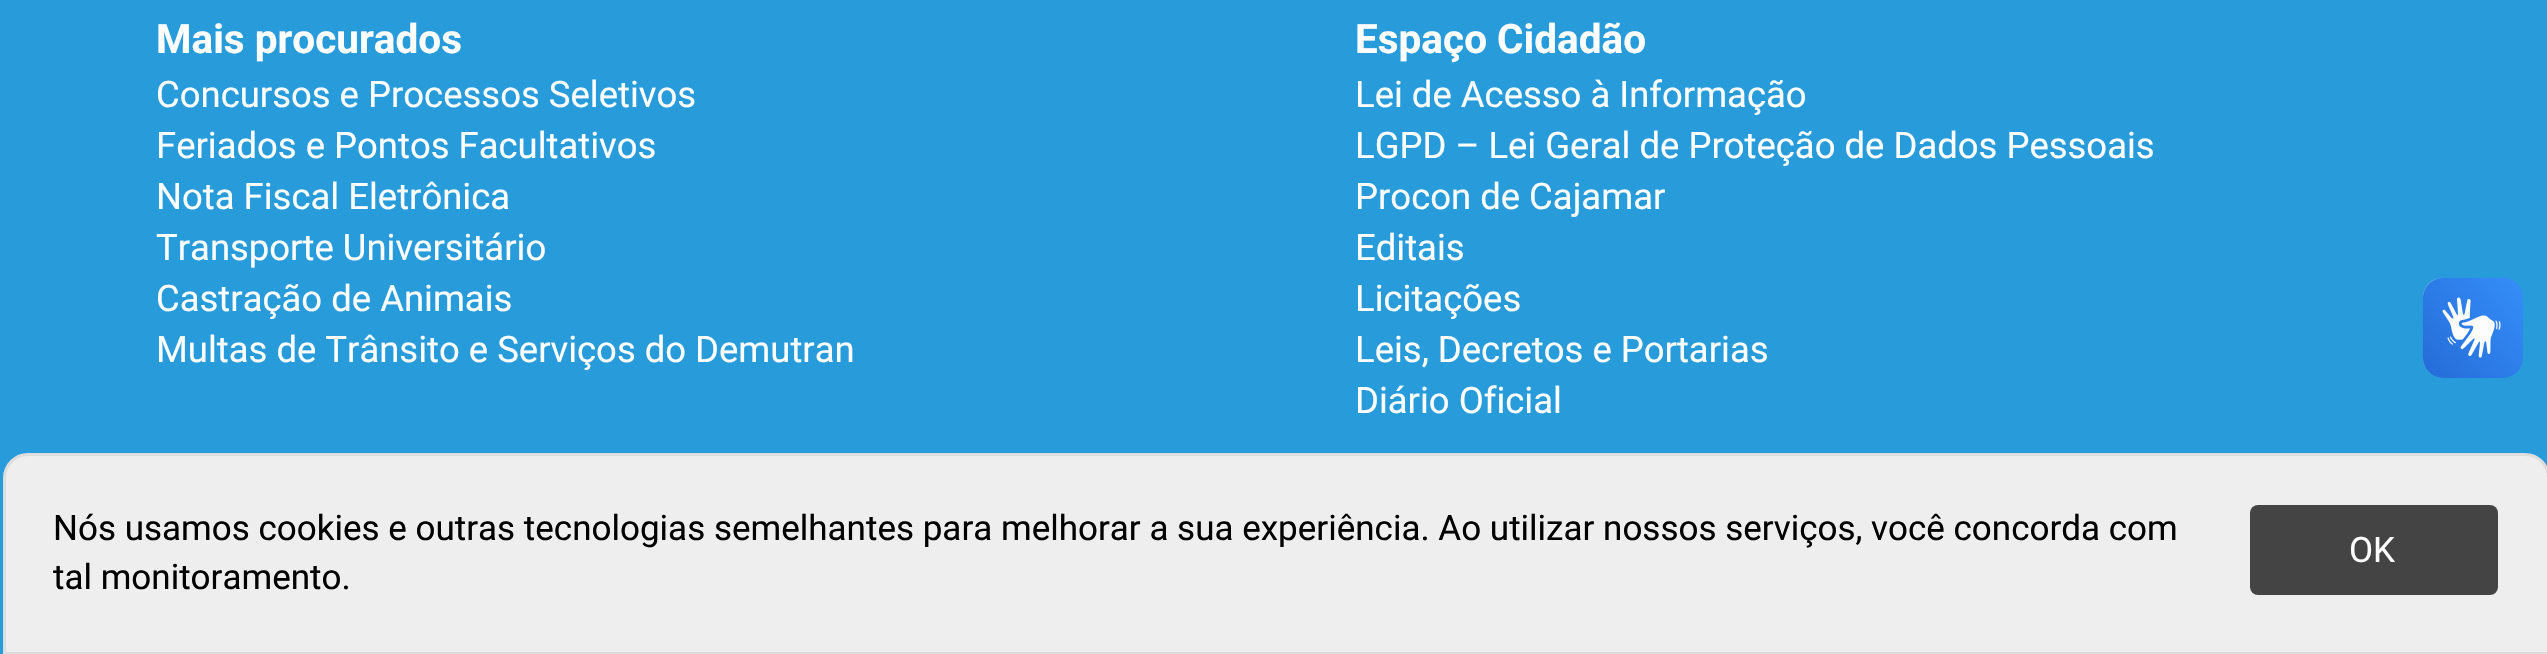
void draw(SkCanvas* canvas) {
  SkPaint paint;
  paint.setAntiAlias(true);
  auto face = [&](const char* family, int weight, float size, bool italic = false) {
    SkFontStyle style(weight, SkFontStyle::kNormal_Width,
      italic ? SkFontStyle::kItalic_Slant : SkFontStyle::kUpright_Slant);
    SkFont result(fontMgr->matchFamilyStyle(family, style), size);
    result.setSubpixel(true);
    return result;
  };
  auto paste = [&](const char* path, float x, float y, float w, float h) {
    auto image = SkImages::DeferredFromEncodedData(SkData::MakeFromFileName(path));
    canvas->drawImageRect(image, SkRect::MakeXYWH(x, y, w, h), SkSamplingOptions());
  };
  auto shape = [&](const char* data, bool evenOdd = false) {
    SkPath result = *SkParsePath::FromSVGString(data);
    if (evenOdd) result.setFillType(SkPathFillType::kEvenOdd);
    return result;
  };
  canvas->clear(0xff289cdb);
  paste("img/1.png", 2422, 277, 101, 101);
  paste("img/2.png", 2423, 278, 100, 100);
  paint.setColor(0xffeeeeee);
  canvas->drawPath(shape("M28 454.5H2525C2538 454.5 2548.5 465 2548.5 478V653.5H4.5V478C4.5 465 15 454.5 28 454.5Z"), paint);
  paint.setStroke(true);
  paint.setStrokeWidth(3);
  paint.setColor(0xffdddddd);
  canvas->drawPath(shape("M28 454.5H2525C2538 454.5 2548.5 465 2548.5 478V653.5H4.5V478C4.5 465 15 454.5 28 454.5Z"), paint);
  paint.setStroke(false);
  paint.setColor(0xff444444);
  canvas->drawRoundRect(SkRect::MakeXYWH(2250, 505, 248, 90), 8, 8, paint);
  auto f0 = face("Roboto", 700, 40.5f);
  paint.setColor(0xffffffff);
  canvas->drawString("Mais procurados", 156, 53, f0, paint);
  auto f1 = face("Roboto", 400, 36.45f);
  {
    const struct { const char* s; float x, y; } items[] = {
      {"Concursos e Processos Seletivos", 156, 107},
      {"Feriados e Pontos Facultativos", 156, 158},
      {"Nota Fiscal Eletrônica", 156, 209},
      {"Transporte Universitário", 156, 260},
      {"Castração de Animais", 156, 311},
      {"Multas de Trânsito e Serviços do Demutran", 156, 362},
    };
    for (auto [s, x, y] : items) {
      canvas->drawString(s, x, y, f1, paint);
    }
  }
  canvas->drawString("Espaço Cidadão", 1355, 53, f0, paint);
  {
    const struct { const char* s; float x, y; } items[] = {
      {"Lei de Acesso à Informação", 1355, 107},
      {"LGPD – Lei Geral de Proteção de Dados Pessoais", 1355, 158},
      {"Procon de Cajamar", 1355, 209},
      {"Editais", 1355, 260},
      {"Licitações", 1355, 311},
      {"Leis, Decretos e Portarias", 1355, 362},
      {"Diário Oficial", 1355, 413},
    };
    for (auto [s, x, y] : items) {
      canvas->drawString(s, x, y, f1, paint);
    }
  }
  auto f2 = face("Roboto", 400, 35);
  paint.setColor(0xff000000);
  canvas->drawString("Nós usamos cookies e outras tecnologias semelhantes para melhorar a sua experiência. Ao utilizar nossos serviços, você concorda com", 53, 540, f2, paint);
  canvas->drawString("tal monitoramento.", 53, 589, f2, paint);
  paint.setColor(0xffffffff);
  canvas->drawString("OK", 2349, 562, f2, paint);
}
